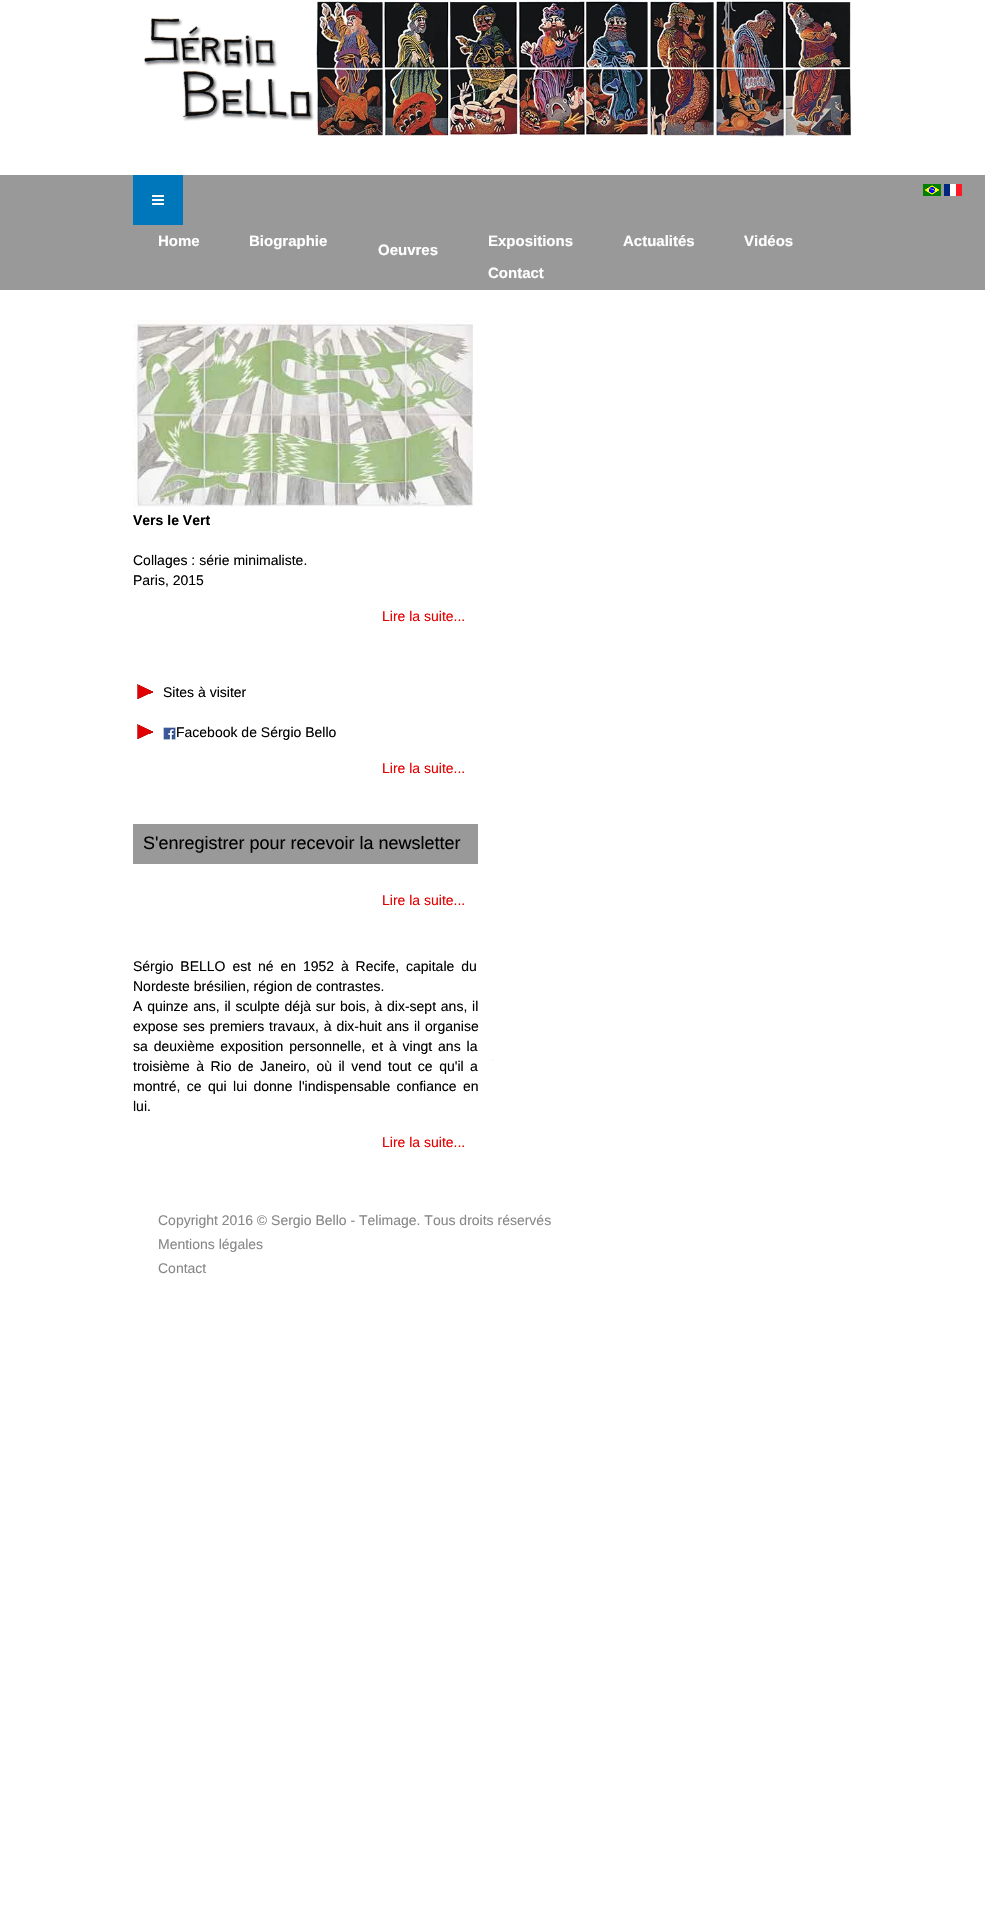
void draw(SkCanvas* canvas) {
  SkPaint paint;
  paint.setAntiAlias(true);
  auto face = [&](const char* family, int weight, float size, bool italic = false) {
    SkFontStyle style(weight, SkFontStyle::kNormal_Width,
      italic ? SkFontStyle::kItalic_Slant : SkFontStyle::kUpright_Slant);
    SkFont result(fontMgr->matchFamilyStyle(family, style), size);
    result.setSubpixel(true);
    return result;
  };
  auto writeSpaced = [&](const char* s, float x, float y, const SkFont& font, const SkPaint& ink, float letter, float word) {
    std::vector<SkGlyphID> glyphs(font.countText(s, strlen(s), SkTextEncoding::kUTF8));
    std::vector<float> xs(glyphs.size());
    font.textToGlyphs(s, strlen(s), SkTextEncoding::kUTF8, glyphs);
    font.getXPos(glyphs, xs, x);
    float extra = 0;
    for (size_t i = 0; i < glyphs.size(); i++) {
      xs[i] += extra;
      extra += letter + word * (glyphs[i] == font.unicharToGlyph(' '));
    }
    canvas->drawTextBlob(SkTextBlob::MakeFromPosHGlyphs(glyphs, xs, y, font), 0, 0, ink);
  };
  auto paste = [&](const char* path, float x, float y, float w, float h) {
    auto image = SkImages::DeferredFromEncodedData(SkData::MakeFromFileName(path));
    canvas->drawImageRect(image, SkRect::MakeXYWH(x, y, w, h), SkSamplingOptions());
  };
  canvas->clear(0xffffffff);
  paste("img/1.png", 144, 0, 709, 137);
  paint.setColor(0xff99999a);
  canvas->drawRect(SkRect::MakeXYWH(0, 175, 985, 115), paint);
  paste("img/2.png", 923, 184, 18, 12);
  paste("img/3.png", 944, 184, 18, 12);
  paint.setColor(0xff0077bb);
  canvas->drawRect(SkRect::MakeXYWH(133, 175, 50, 50), paint);
  paste("img/4.png", 152, 195, 12, 10);
  paint.setColor(0xffefefef);
  canvas->drawRect(SkRect::MakeXYWH(492, 1059, 1, 2), paint);
  paste("img/5.png", 133, 320, 340, 187);
  paste("img/6.png", 137, 684, 16, 15);
  paste("img/6.png", 137, 724, 16, 15);
  paste("img/7.png", 163, 727, 13, 13);
  paint.setColor(0xff99999a);
  canvas->drawRect(SkRect::MakeXYWH(133, 824, 345, 40), paint);
  auto f0 = face("Liberation Sans", 700, 15);
  paint.setColor(0xffffffff);
  {
    const struct { const char* s; float x, y; } items[] = {
      {"Home", 158, 246},
      {"Biographie", 249, 246},
      {"Expositions", 488, 246},
      {"Actualités", 623, 246},
      {"Vidéos", 744, 246},
      {"Oeuvres", 378, 255},
      {"Contact", 488, 278},
    };
    for (auto [s, x, y] : items) {
      canvas->drawString(s, x, y, f0, paint);
    }
  }
  auto f1 = face("Liberation Sans", 700, 14);
  paint.setColor(0xff000000);
  canvas->drawString("Vers le Vert", 133, 525, f1, paint);
  auto f2 = face("Liberation Sans", 400, 14);
  canvas->drawString("Collages : série minimaliste.", 133, 565, f2, paint);
  canvas->drawString("Paris, 2015", 133, 585, f2, paint);
  paint.setColor(0xffe30000);
  canvas->drawString("Lire la suite...", 382, 621, f2, paint);
  paint.setColor(0xff000000);
  canvas->drawString("Sites à visiter", 163, 697, f2, paint);
  canvas->drawString("Facebook de Sérgio Bello", 176, 737, f2, paint);
  paint.setColor(0xffe30000);
  canvas->drawString("Lire la suite...", 382, 773, f2, paint);
  auto f3 = face("Liberation Sans", 400, 18);
  paint.setColor(0xff000000);
  canvas->drawString("S'enregistrer pour recevoir la newsletter", 143, 849, f3, paint);
  paint.setColor(0xffe30000);
  canvas->drawString("Lire la suite...", 382, 905, f2, paint);
  paint.setColor(0xff000000);
  writeSpaced("Sérgio BELLO est né en 1952 à Recife, capitale du", 133, 971, f2, paint, 0, 3);
  canvas->drawString("Nordeste brésilien, région de contrastes.", 133, 991, f2, paint);
  writeSpaced("A quinze ans, il sculpte déjà sur bois, à dix-sept ans, il", 133, 1011, f2, paint, 0, 0.9f);
  writeSpaced("expose ses premiers travaux, à dix-huit ans il organise", 133, 1031, f2, paint, 0, 1);
  writeSpaced("sa deuxième exposition personnelle, et à vingt ans la", 133, 1051, f2, paint, 0, 2);
  writeSpaced("troisième à Rio de Janeiro, où il vend tout ce qu'il a", 133, 1071, f2, paint, 0, 2.6f);
  writeSpaced("montré, ce qui lui donne l'indispensable confiance en", 133, 1091, f2, paint, 0, 2.5f);
  canvas->drawString("lui.", 133, 1111, f2, paint);
  paint.setColor(0xffe30000);
  canvas->drawString("Lire la suite...", 382, 1147, f2, paint);
  paint.setColor(0xff878787);
  {
    const struct { const char* s; float x, y; } items[] = {
      {"Copyright 2016 © Sergio Bello - Telimage. Tous droits réservés", 158, 1225},
      {"Mentions légales", 158, 1249},
      {"Contact", 158, 1273},
    };
    for (auto [s, x, y] : items) {
      canvas->drawString(s, x, y, f2, paint);
    }
  }
}
